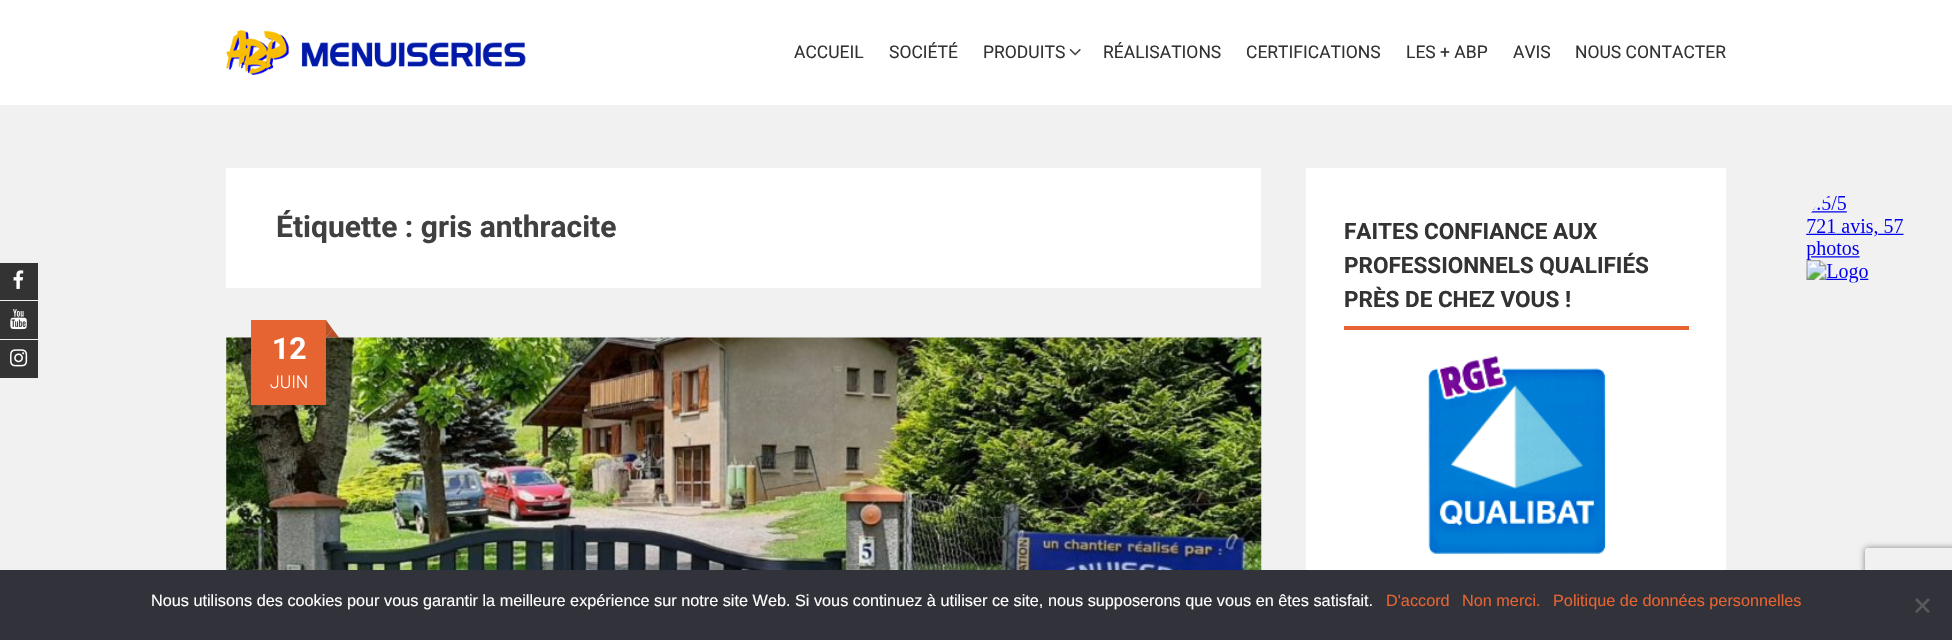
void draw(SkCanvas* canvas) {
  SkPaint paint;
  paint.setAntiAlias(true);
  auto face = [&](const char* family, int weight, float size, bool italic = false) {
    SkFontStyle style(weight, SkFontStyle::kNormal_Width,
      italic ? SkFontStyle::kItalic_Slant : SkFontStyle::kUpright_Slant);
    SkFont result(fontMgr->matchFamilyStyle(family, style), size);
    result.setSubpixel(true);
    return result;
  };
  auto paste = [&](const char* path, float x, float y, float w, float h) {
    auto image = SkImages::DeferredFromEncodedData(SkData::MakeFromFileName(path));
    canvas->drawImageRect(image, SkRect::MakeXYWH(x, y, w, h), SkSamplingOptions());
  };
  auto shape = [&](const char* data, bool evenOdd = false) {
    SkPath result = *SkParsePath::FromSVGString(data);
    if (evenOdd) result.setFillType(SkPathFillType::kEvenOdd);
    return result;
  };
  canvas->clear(0xfff1f1f1);
  paint.setColor(0xffffffff);
  canvas->drawRect(SkRect::MakeXYWH(0, 0, 1952, 105), paint);
  paste("img/1.png", 226, 30, 300, 45);
  paste("img/2.png", 1069, 48, 12, 8);
  paint.setColor(0xff333333);
  canvas->drawRect(SkRect::MakeXYWH(0, 263, 38, 37), paint);
  paste("img/3.png", 13, 270, 11, 19);
  canvas->drawRect(SkRect::MakeXYWH(0, 301, 38, 38), paint);
  paste("img/4.png", 10, 309, 17, 21);
  canvas->drawRect(SkRect::MakeXYWH(0, 340, 38, 38), paint);
  paste("img/5.png", 10, 349, 18, 18);
  paint.setColor(0xffffffff);
  canvas->drawRect(SkRect::MakeXYWH(226, 168, 1035, 120), paint);
  paint.setColor(0xffb85028);
  canvas->drawPath(shape("M339 337.5H326L332.5 329Z"), paint);
  canvas->drawPath(shape("M326 337.5V320L332.5 329Z"), paint);
  paste("img/6.png", 226, 337, 1036, 233);
  {
    const struct { float x, y, w, h; SkColor color; } items[] = {
      {251, 320, 75, 85, 0xffe66432},
      {1306, 168, 420, 402, 0xffffffff},
      {1344, 326, 345, 4, 0xffe66432},
    };
    for (auto [x, y, w, h, color] : items) {
      paint.setColor(color);
      canvas->drawRect(SkRect::MakeXYWH(x, y, w, h), paint);
    }
  }
  paste("img/7.png", 1428, 356, 178, 198);
  paste("img/8.png", 1806, 196, 98, 87);
  canvas->save();
  canvas->clipPath(shape("M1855 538H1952V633H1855ZM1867.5 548H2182.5C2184 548 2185 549 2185 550.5V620.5C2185 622 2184 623 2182.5 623H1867.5C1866 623 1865 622 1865 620.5V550.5C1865 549 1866 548 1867.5 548Z", true), true);
  paint.setColor(0xff808080);
  paint.setMaskFilter(SkMaskFilter::MakeBlur(kNormal_SkBlurStyle, 3));
  canvas->drawRoundRect(SkRect::MakeXYWH(1865, 548, 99, 75), 2.5f, 2.5f, paint);
  paint.setMaskFilter(nullptr);
  canvas->restore();
  paint.setColor(0xff32323a);
  canvas->drawRect(SkRect::MakeXYWH(0, 570, 1952, 70), paint);
  paint.setColor(0xff59595d);
  canvas->drawPath(shape("M1928 598L1930 600L1917 613L1915 611.5Z"), paint);
  canvas->drawPath(shape("M1915 600L1917 598L1930 611.5L1928 613Z"), paint);
  auto f0 = face("Roboto", 400, 17.5f);
  paint.setColor(0xff333333);
  {
    const struct { const char* s; float x, y; } items[] = {
      {"ACCUEIL", 794, 58},
      {"SOCIÉTÉ", 889, 58},
      {"PRODUITS", 983, 58},
      {"RÉALISATIONS", 1103, 58},
      {"CERTIFICATIONS", 1246, 58},
      {"LES + ABP", 1406, 58},
      {"AVIS", 1513, 58},
      {"NOUS CONTACTER", 1575, 58},
    };
    for (auto [s, x, y] : items) {
      canvas->drawString(s, x, y, f0, paint);
    }
  }
  auto f1 = face("Roboto", 700, 30);
  paint.setColor(0xff404040);
  canvas->drawString("Étiquette : gris anthracite", 276, 237, f1, paint);
  paint.setColor(0xffffffff);
  canvas->drawString("12", 272, 359, f1, paint);
  auto f2 = face("Roboto", 300, 17.5f);
  canvas->drawString("JUIN", 270, 388, f2, paint);
  auto f3 = face("Roboto", 700, 22.5f);
  paint.setColor(0xff333333);
  {
    const struct { const char* s; float x, y; } items[] = {
      {"FAITES CONFIANCE AUX", 1344, 239},
      {"PROFESSIONNELS QUALIFIÉS", 1344, 273},
      {"PRÈS DE CHEZ VOUS !", 1344, 307},
    };
    for (auto [s, x, y] : items) {
      canvas->drawString(s, x, y, f3, paint);
    }
  }
  auto f4 = face("Liberation Sans", 400, 16.25f);
  paint.setColor(0xffffffff);
  canvas->drawString("Nous utilisons des cookies pour vous garantir la meilleure expérience sur notre site Web. Si vous continuez à utiliser ce site, nous supposerons que vous en êtes satisfait.", 151, 606, f4, paint);
  paint.setColor(0xffe66432);
  {
    const struct { const char* s; float x, y; } items[] = {
      {"D'accord", 1386, 606},
      {"Non merci.", 1462, 606},
      {"Politique de données personnelles", 1553, 606},
    };
    for (auto [s, x, y] : items) {
      canvas->drawString(s, x, y, f4, paint);
    }
  }
}
